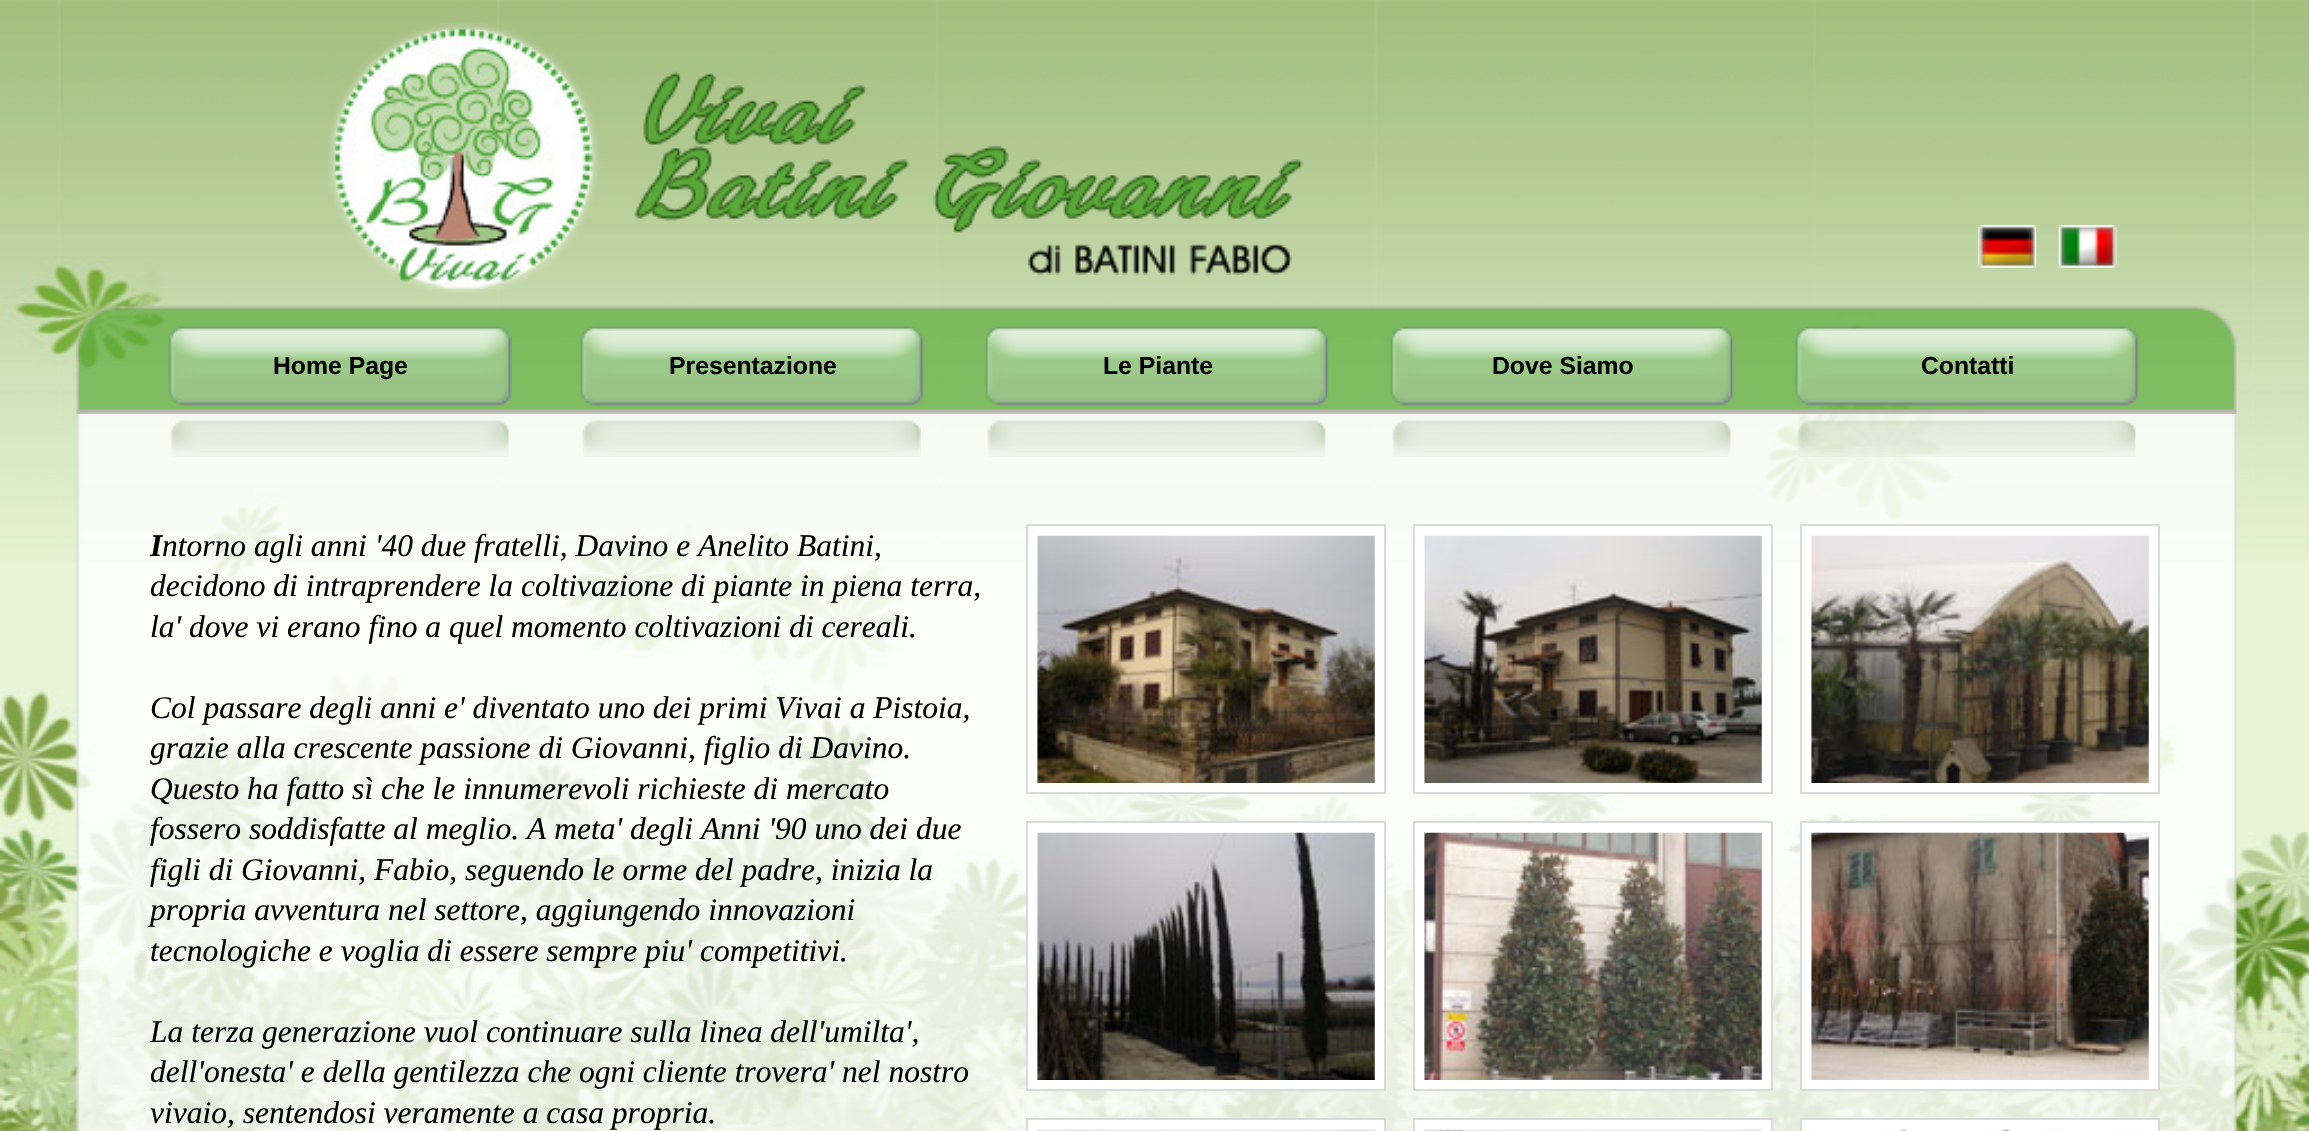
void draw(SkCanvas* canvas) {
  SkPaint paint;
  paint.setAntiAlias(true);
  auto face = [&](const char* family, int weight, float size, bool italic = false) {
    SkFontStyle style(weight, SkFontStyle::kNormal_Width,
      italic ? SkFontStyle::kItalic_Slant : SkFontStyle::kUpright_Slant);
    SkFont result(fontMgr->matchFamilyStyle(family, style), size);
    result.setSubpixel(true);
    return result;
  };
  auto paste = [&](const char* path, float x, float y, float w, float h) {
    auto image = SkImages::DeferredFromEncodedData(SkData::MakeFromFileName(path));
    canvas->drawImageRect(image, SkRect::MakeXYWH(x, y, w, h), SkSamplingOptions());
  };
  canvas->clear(0xffe7f4d6);
  paste("img/1.png", 0, 256, 2309, 875);
  paste("img/2.png", 0, 0, 2309, 562);
  paste("img/3.png", 76, 305, 2161, 109);
  paste("img/4.png", 328, 22, 976, 271);
  paste("img/5.png", 1977, 225, 60, 43);
  paste("img/6.png", 2058, 225, 60, 43);
  paste("img/12.png", 75, 414, 2163, 717);
  paste("img/7.png", 168, 326, 344, 131);
  paste("img/8.png", 580, 326, 344, 131);
  paste("img/9.png", 985, 326, 344, 131);
  paste("img/10.png", 1390, 326, 344, 131);
  paste("img/11.png", 1795, 326, 344, 131);
  paint.setColor(0xffffffff);
  canvas->drawRect(SkRect::MakeXYWH(1027, 525, 358, 268), paint);
  paint.setStroke(true);
  paint.setStrokeWidth(2);
  paint.setColor(0xffdadada);
  canvas->drawRect(SkRect::MakeXYWH(1027, 525, 358, 268), paint);
  paste("img/13.png", 1037, 535, 338, 248);
  paint.setStroke(false);
  paint.setColor(0xffffffff);
  canvas->drawRect(SkRect::MakeXYWH(1414, 525, 358, 268), paint);
  paint.setStroke(true);
  paint.setColor(0xffdadada);
  canvas->drawRect(SkRect::MakeXYWH(1414, 525, 358, 268), paint);
  paste("img/14.png", 1424, 535, 338, 248);
  paint.setStroke(false);
  paint.setColor(0xffffffff);
  canvas->drawRect(SkRect::MakeXYWH(1801, 525, 358, 268), paint);
  paint.setStroke(true);
  paint.setColor(0xffdadada);
  canvas->drawRect(SkRect::MakeXYWH(1801, 525, 358, 268), paint);
  paste("img/15.png", 1811, 535, 338, 248);
  paint.setStroke(false);
  paint.setColor(0xffffffff);
  canvas->drawRect(SkRect::MakeXYWH(1027, 822, 358, 268), paint);
  paint.setStroke(true);
  paint.setColor(0xffdadada);
  canvas->drawRect(SkRect::MakeXYWH(1027, 822, 358, 268), paint);
  paste("img/16.png", 1037, 832, 338, 248);
  paint.setStroke(false);
  paint.setColor(0xffffffff);
  canvas->drawRect(SkRect::MakeXYWH(1414, 822, 358, 268), paint);
  paint.setStroke(true);
  paint.setColor(0xffdadada);
  canvas->drawRect(SkRect::MakeXYWH(1414, 822, 358, 268), paint);
  paste("img/17.png", 1424, 832, 338, 248);
  paint.setStroke(false);
  paint.setColor(0xffffffff);
  canvas->drawRect(SkRect::MakeXYWH(1801, 822, 358, 268), paint);
  paint.setStroke(true);
  paint.setColor(0xffdadada);
  canvas->drawRect(SkRect::MakeXYWH(1801, 822, 358, 268), paint);
  paste("img/18.png", 1811, 832, 338, 248);
  paint.setStroke(false);
  paint.setColor(0xffffffff);
  canvas->drawRect(SkRect::MakeXYWH(1027, 1119, 358, 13), paint);
  paint.setStroke(true);
  paint.setColor(0xffdadada);
  canvas->drawRect(SkRect::MakeXYWH(1027, 1119, 358, 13), paint);
  paste("img/19.png", 1037, 1129, 338, 2);
  paint.setStroke(false);
  paint.setColor(0xffffffff);
  canvas->drawRect(SkRect::MakeXYWH(1414, 1119, 358, 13), paint);
  paint.setStroke(true);
  paint.setColor(0xffdadada);
  canvas->drawRect(SkRect::MakeXYWH(1414, 1119, 358, 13), paint);
  paste("img/20.png", 1424, 1129, 338, 2);
  paint.setStroke(false);
  paint.setColor(0xffffffff);
  canvas->drawRect(SkRect::MakeXYWH(1801, 1119, 358, 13), paint);
  paint.setStroke(true);
  paint.setColor(0xffdadada);
  canvas->drawRect(SkRect::MakeXYWH(1801, 1119, 358, 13), paint);
  paste("img/21.png", 1812, 1129, 333, 2);
  auto f0 = face("Liberation Sans", 700, 24.75f);
  paint.setStroke(false);
  paint.setColor(0xff000000);
  {
    const struct { const char* s; float x, y; } items[] = {
      {"Home Page", 273, 374},
      {"Presentazione", 669, 374},
      {"Le Piante", 1103, 374},
      {"Dove Siamo", 1492, 374},
      {"Contatti", 1921, 374},
    };
    for (auto [s, x, y] : items) {
      canvas->drawString(s, x, y, f0, paint);
    }
  }
  auto f1 = face("Liberation Serif", 700, 31.5f, true);
  canvas->drawString("I", 150, 556, f1, paint);
  auto f2 = face("Liberation Serif", 400, 31.5f, true);
  {
    const struct { const char* s; float x, y; } items[] = {
      {"ntorno agli anni '40 due fratelli, Davino e Anelito Batini,", 162, 556},
      {"decidono di intraprendere la coltivazione di piante in piena terra,", 150, 596},
      {"la' dove vi erano fino a quel momento coltivazioni di cereali.", 150, 637},
      {"Col passare degli anni e' diventato uno dei primi Vivai a Pistoia,", 150, 718},
      {"grazie alla crescente passione di Giovanni, figlio di Davino.", 150, 758},
      {"Questo ha fatto sì che le innumerevoli richieste di mercato", 150, 799},
      {"fossero soddisfatte al meglio. A meta' degli Anni '90 uno dei due", 150, 839},
      {"figli di Giovanni, Fabio, seguendo le orme del padre, inizia la", 150, 880},
      {"propria avventura nel settore, aggiungendo innovazioni", 150, 920},
      {"tecnologiche e voglia di essere sempre piu' competitivi.", 150, 961},
      {"La terza generazione vuol continuare sulla linea dell'umilta',", 150, 1042},
      {"dell'onesta' e della gentilezza che ogni cliente trovera' nel nostro", 150, 1082},
      {"vivaio, sentendosi veramente a casa propria.", 150, 1123},
    };
    for (auto [s, x, y] : items) {
      canvas->drawString(s, x, y, f2, paint);
    }
  }
}
